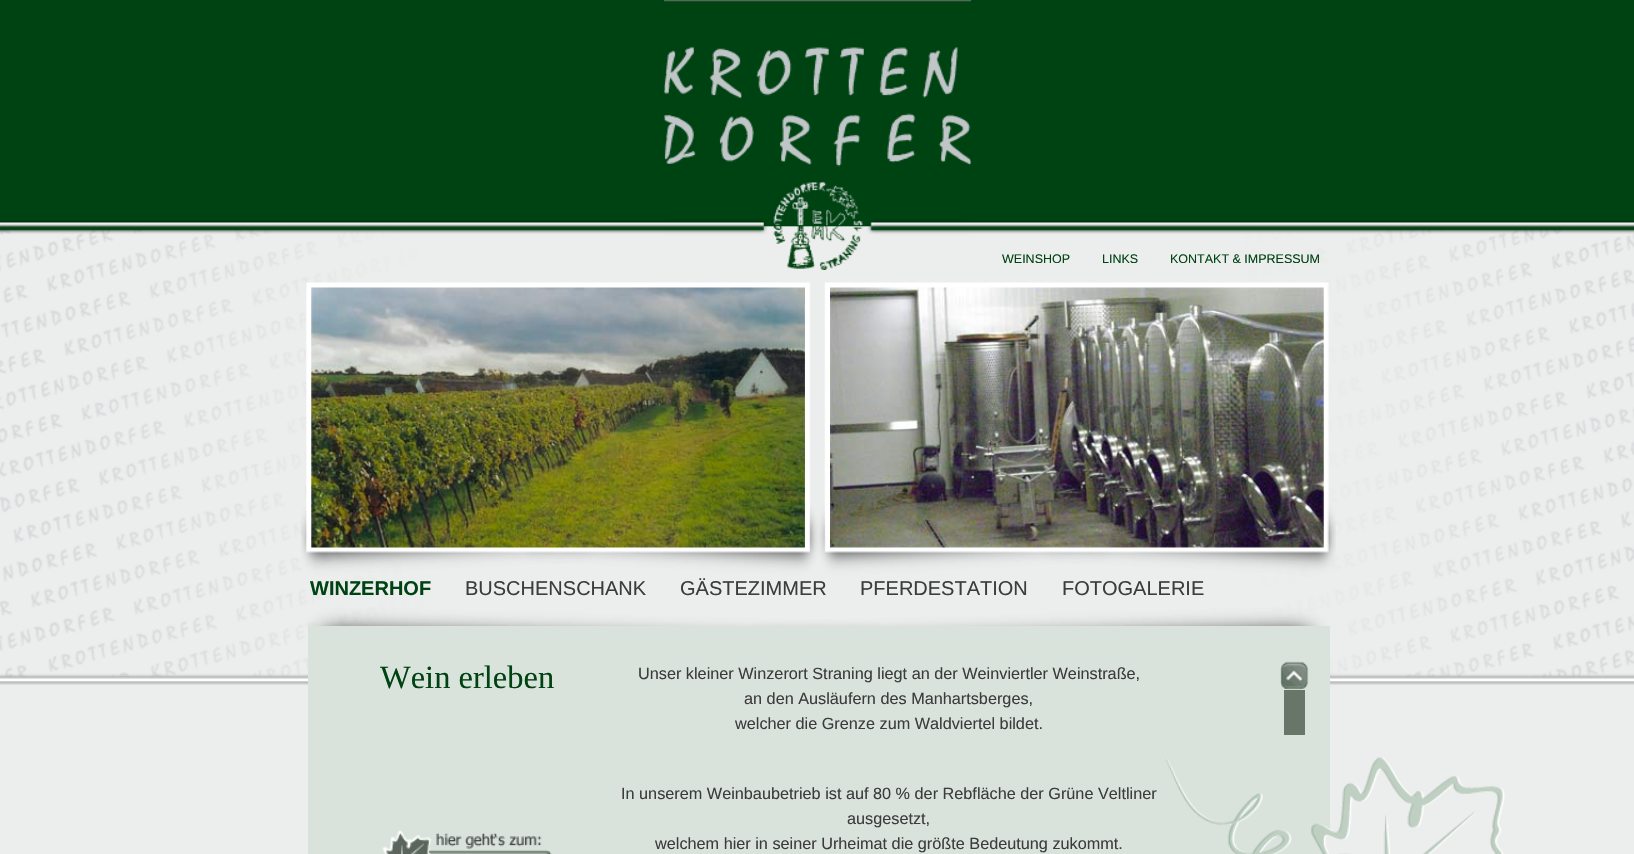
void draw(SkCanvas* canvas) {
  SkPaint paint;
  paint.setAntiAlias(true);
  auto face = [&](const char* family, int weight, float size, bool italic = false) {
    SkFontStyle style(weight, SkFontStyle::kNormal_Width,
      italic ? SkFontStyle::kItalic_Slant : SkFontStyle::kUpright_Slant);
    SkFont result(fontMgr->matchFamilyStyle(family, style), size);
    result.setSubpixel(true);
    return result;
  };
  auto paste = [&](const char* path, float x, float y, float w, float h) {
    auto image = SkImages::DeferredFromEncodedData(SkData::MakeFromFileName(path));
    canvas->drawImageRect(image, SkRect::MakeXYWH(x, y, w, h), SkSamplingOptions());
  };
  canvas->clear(0xffeceded);
  paste("img/1.png", 0, 0, 1634, 685);
  paste("img/2.png", 0, 220, 1634, 14);
  paste("img/3.png", 1330, 757, 175, 97);
  paste("img/4.png", 663, 0, 309, 270);
  paste("img/5.png", 301, 282, 1035, 344);
  paste("img/6.png", 311, 287, 494, 261);
  paste("img/7.png", 830, 287, 494, 261);
  paint.setColor(0xffd9e3dc);
  canvas->drawRect(SkRect::MakeXYWH(308, 626, 1022, 228), paint);
  paste("img/8.png", 1165, 759, 165, 95);
  paste("img/9.png", 1280, 661, 29, 29);
  paint.setColor(0xff68766a);
  canvas->drawRect(SkRect::MakeXYWH(1284, 690, 21, 45), paint);
  paste("img/10.png", 382, 830, 170, 24);
  auto f0 = face("Liberation Sans", 400, 12.5f);
  paint.setColor(0xff004313);
  {
    const struct { const char* s; float x, y; } items[] = {
      {"WEINSHOP", 1002, 263},
      {"LINKS", 1102, 263},
      {"KONTAKT & IMPRESSUM", 1170, 263},
    };
    for (auto [s, x, y] : items) {
      canvas->drawString(s, x, y, f0, paint);
    }
  }
  auto f1 = face("Liberation Sans", 700, 20);
  canvas->drawString("WINZERHOF", 310, 595, f1, paint);
  auto f2 = face("Liberation Sans", 400, 20);
  paint.setColor(0xff3c3c3c);
  {
    const struct { const char* s; float x, y; } items[] = {
      {"BUSCHENSCHANK", 465, 595},
      {"GÄSTEZIMMER", 680, 595},
      {"PFERDESTATION", 860, 595},
      {"FOTOGALERIE", 1062, 595},
    };
    for (auto [s, x, y] : items) {
      canvas->drawString(s, x, y, f2, paint);
    }
  }
  auto f3 = face("Liberation Serif", 400, 32.5f);
  paint.setColor(0xff004313);
  canvas->drawString("Wein erleben", 380, 688, f3, paint);
  auto f4 = face("Liberation Sans", 400, 16.25f);
  paint.setColor(0xff3c3c3c);
  {
    const struct { const char* s; float x, y; } items[] = {
      {"Unser kleiner Winzerort Straning liegt an der Weinviertler Weinstraße,", 638, 679},
      {"an den Ausläufern des Manhartsberges,", 744, 704},
      {"welcher die Grenze zum Waldviertel bildet.", 735, 729},
      {"In unserem Weinbaubetrieb ist auf 80 % der Rebfläche der Grüne Veltliner", 621, 799},
      {"ausgesetzt,", 847, 824},
      {"welchem hier in seiner Urheimat die größte Bedeutung zukommt.", 655, 849},
    };
    for (auto [s, x, y] : items) {
      canvas->drawString(s, x, y, f4, paint);
    }
  }
}
